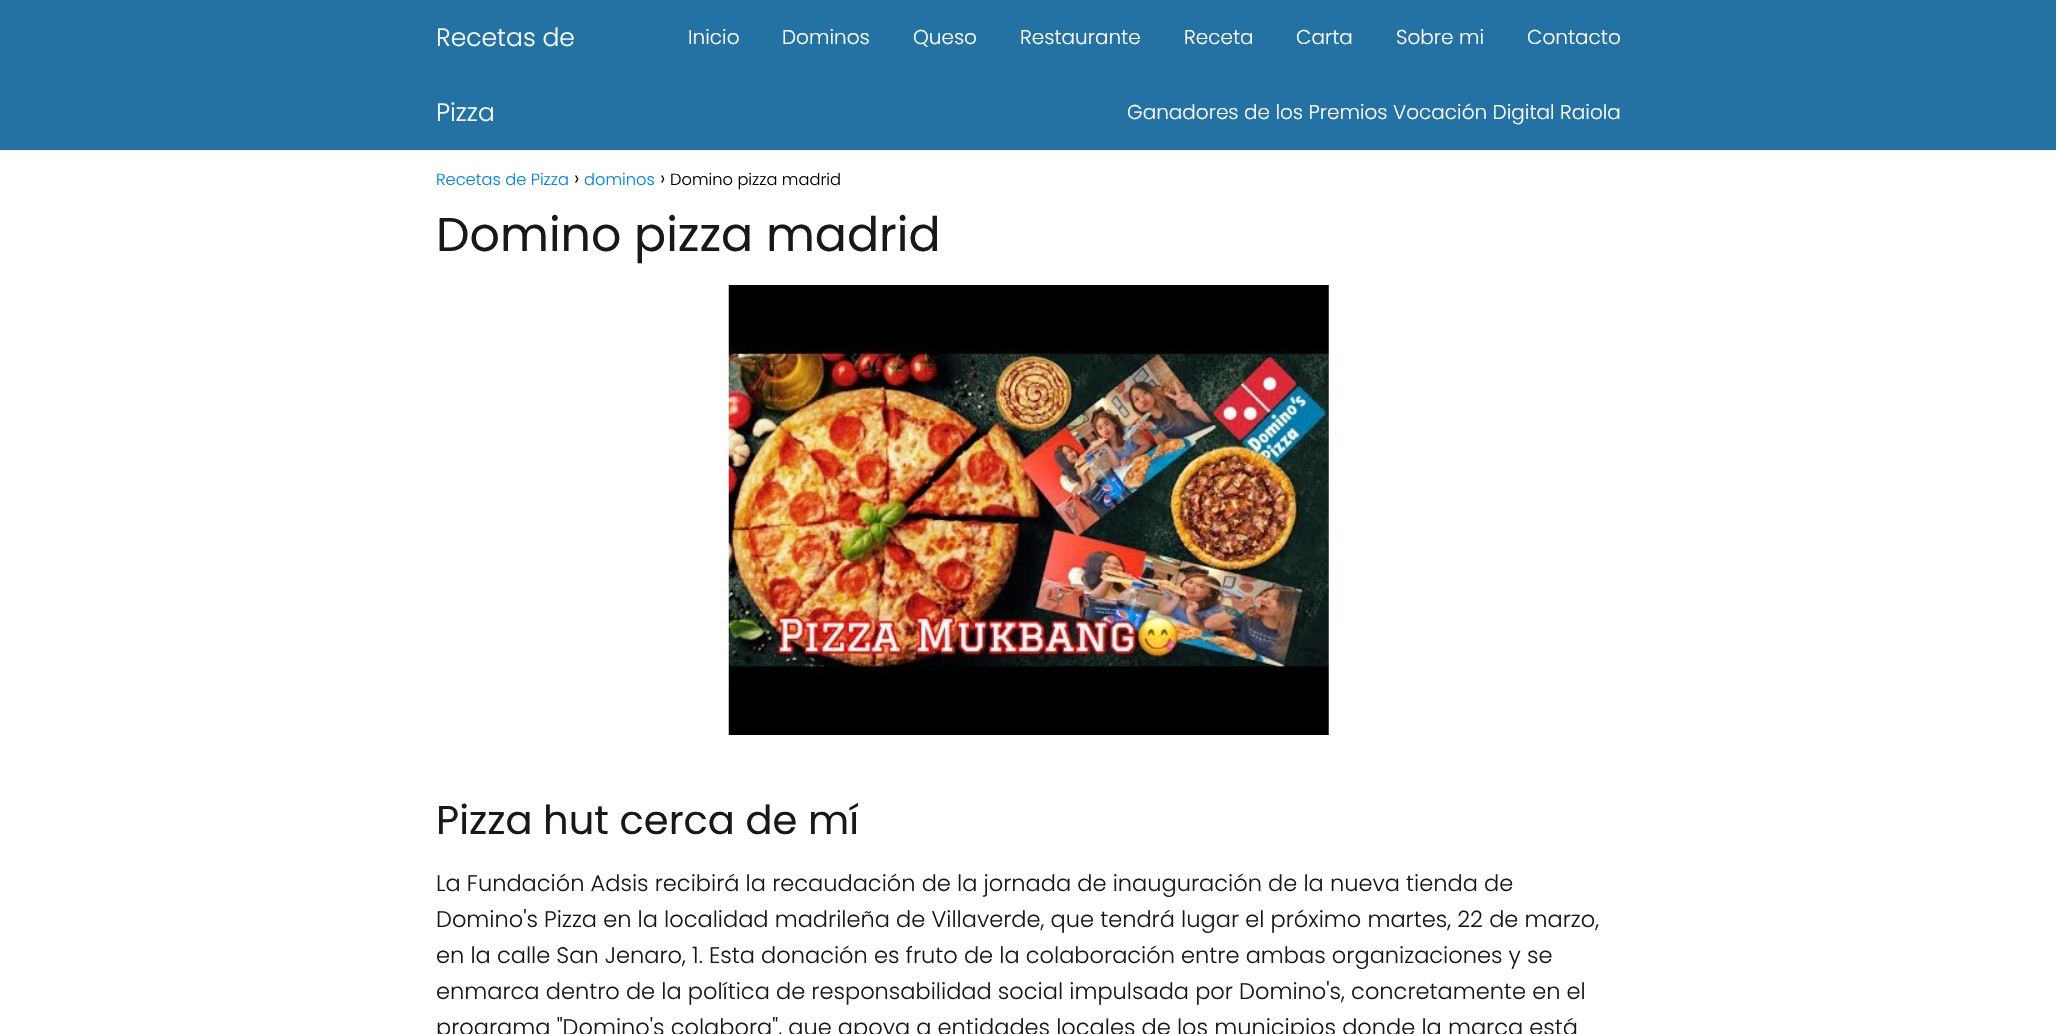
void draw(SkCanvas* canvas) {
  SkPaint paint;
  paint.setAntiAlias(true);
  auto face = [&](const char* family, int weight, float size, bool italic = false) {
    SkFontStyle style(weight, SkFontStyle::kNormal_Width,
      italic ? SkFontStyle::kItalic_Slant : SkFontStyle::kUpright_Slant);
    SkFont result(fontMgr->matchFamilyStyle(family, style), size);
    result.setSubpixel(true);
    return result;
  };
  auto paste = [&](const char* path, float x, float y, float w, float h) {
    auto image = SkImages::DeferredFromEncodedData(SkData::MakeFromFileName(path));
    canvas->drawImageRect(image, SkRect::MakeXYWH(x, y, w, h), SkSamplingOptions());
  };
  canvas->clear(0xffffffff);
  paint.setColor(0xff2471a3);
  canvas->drawRect(SkRect::MakeXYWH(0, 0, 2056, 150), paint);
  paste("img/1.png", 728, 285, 601, 450);
  auto f0 = face("Poppins", 300, 25);
  paint.setColor(0xffffffff);
  canvas->drawString("Recetas de", 436, 46, f0, paint);
  canvas->drawString("Pizza", 436, 121, f0, paint);
  auto f1 = face("Poppins", 300, 20);
  {
    const struct { const char* s; float x, y; } items[] = {
      {"Inicio", 688, 44},
      {"Dominos", 782, 44},
      {"Queso", 913, 44},
      {"Restaurante", 1020, 44},
      {"Receta", 1184, 44},
      {"Carta", 1296, 44},
      {"Sobre mi", 1396, 44},
      {"Contacto", 1527, 44},
      {"Ganadores de los Premios Vocación Digital Raiola", 1127, 119},
    };
    for (auto [s, x, y] : items) {
      canvas->drawString(s, x, y, f1, paint);
    }
  }
  auto f2 = face("Poppins", 300, 16.25f);
  paint.setColor(0xff0183e4);
  canvas->drawString("Recetas de Pizza", 436, 185, f2, paint);
  paint.setColor(0xff000000);
  canvas->drawString("›", 574, 185, f1, paint);
  paint.setColor(0xff0183e4);
  canvas->drawString("dominos", 584, 185, f2, paint);
  paint.setColor(0xff000000);
  canvas->drawString("›", 660, 185, f1, paint);
  canvas->drawString("Domino pizza madrid", 670, 185, f2, paint);
  auto f3 = face("Poppins", 400, 47.5f);
  paint.setColor(0xff181818);
  canvas->drawString("Domino pizza madrid", 436, 251, f3, paint);
  auto f4 = face("Poppins", 400, 40);
  canvas->drawString("Pizza hut cerca de mí", 436, 834, f4, paint);
  auto f5 = face("Poppins", 300, 22.5f);
  {
    const struct { const char* s; float x, y; } items[] = {
      {"La Fundación Adsis recibirá la recaudación de la jornada de inauguración de la nueva tienda de", 436, 891},
      {"Domino's Pizza en la localidad madrileña de Villaverde, que tendrá lugar el próximo martes, 22 de marzo,", 436, 927},
      {"en la calle San Jenaro, 1. Esta donación es fruto de la colaboración entre ambas organizaciones y se", 436, 963},
      {"enmarca dentro de la política de responsabilidad social impulsada por Domino's, concretamente en el", 436, 999},
      {"programa \"Domino's colabora\", que apoya a entidades locales de los municipios donde la marca está", 436, 1035},
    };
    for (auto [s, x, y] : items) {
      canvas->drawString(s, x, y, f5, paint);
    }
  }
}
